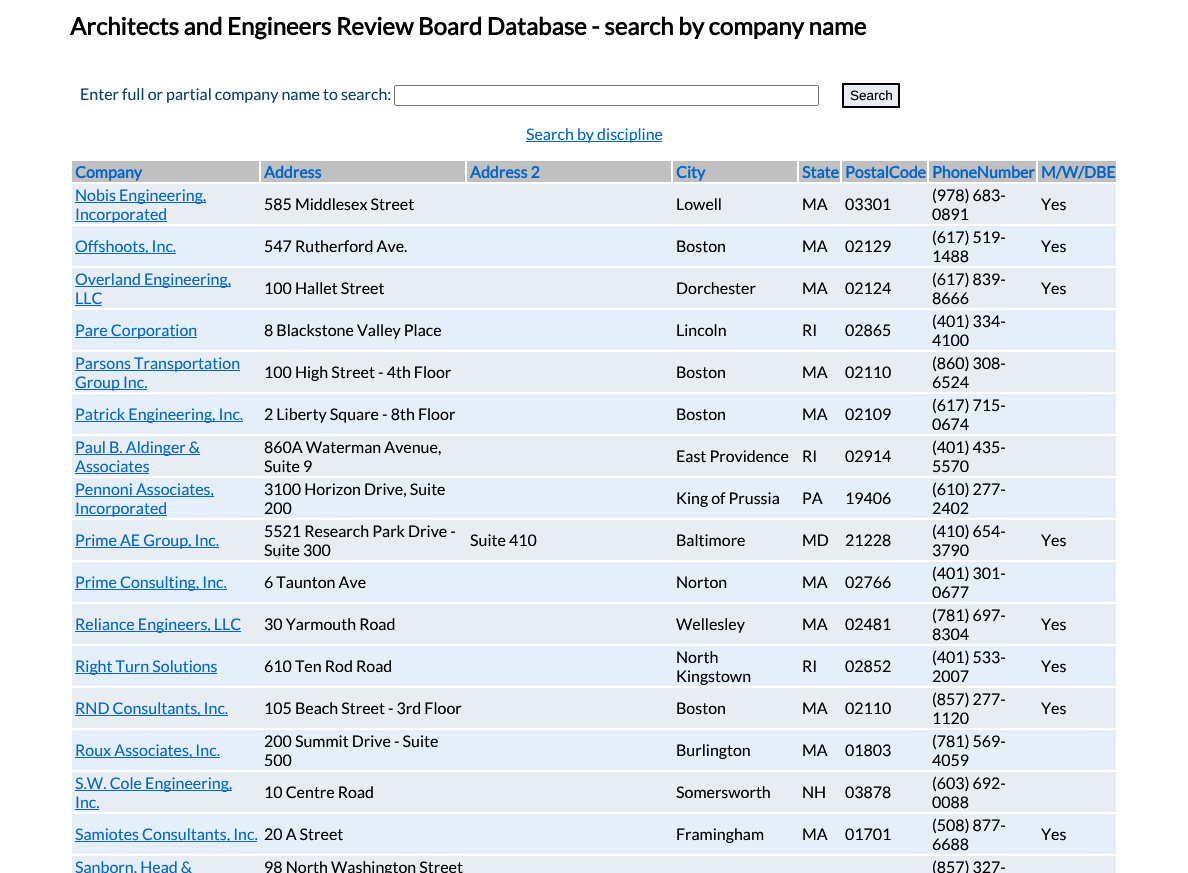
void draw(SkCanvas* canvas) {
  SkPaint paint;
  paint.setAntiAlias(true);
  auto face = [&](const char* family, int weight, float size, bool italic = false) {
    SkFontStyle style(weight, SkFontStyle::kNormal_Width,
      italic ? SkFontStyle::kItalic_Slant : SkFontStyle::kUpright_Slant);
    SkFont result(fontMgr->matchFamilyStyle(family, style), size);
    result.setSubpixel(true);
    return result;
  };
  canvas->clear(0xffffffff);
  paint.setStroke(true);
  paint.setStrokeWidth(1);
  paint.setColor(0xff767676);
  canvas->drawRoundRect(SkRect::MakeXYWH(394.5f, 85.5f, 424, 20), 1.5f, 1.5f, paint);
  paint.setStroke(false);
  paint.setColor(0xffe8edf3);
  canvas->drawRect(SkRect::MakeXYWH(843, 84, 56, 23), paint);
  paint.setStroke(true);
  paint.setStrokeWidth(2);
  paint.setColor(0xff000000);
  canvas->drawRect(SkRect::MakeXYWH(843, 84, 56, 23), paint);
  paint.setStroke(false);
  {
    const struct { float x, y, w, h; SkColor color; } items[] = {
      {526, 141, 136, 1, 0xff0066cc},
      {72, 161, 187, 21, 0xffc0c0c0},
      {261, 161, 204, 21, 0xffc0c0c0},
      {467, 161, 204, 21, 0xffc0c0c0},
      {673, 161, 124, 21, 0xffc0c0c0},
      {799, 161, 41, 21, 0xffc0c0c0},
      {842, 161, 85, 21, 0xffc0c0c0},
      {929, 161, 107, 21, 0xffc0c0c0},
      {1038, 161, 78, 21, 0xffc0c0c0},
      {72, 184, 1044, 40, 0xffe8edf3},
      {75, 202, 131, 1, 0xff0066cc},
      {75, 221, 92, 1, 0xff0066cc},
      {72, 226, 1044, 40, 0xffe5effa},
      {75, 253, 101, 1, 0xff0066cc},
      {72, 268, 1044, 40, 0xffe8edf3},
      {75, 286, 156, 1, 0xff0066cc},
      {75, 305, 27, 1, 0xff0066cc},
      {72, 310, 1044, 40, 0xffe5effa},
      {75, 337, 122, 1, 0xff0066cc},
      {72, 352, 1044, 40, 0xffe8edf3},
      {75, 370, 165, 1, 0xff0066cc},
      {75, 389, 72, 1, 0xff0066cc},
      {72, 394, 1044, 40, 0xffe5effa},
      {75, 421, 168, 1, 0xff0066cc},
      {72, 436, 1044, 40, 0xffe8edf3},
      {75, 454, 125, 1, 0xff0066cc},
      {75, 473, 74, 1, 0xff0066cc},
      {72, 478, 1044, 40, 0xffe5effa},
      {75, 496, 139, 1, 0xff0066cc},
      {75, 515, 92, 1, 0xff0066cc},
      {72, 520, 1044, 40, 0xffe8edf3},
      {75, 547, 144, 1, 0xff0066cc},
      {72, 562, 1044, 40, 0xffe5effa},
      {75, 589, 152, 1, 0xff0066cc},
      {72, 604, 1044, 40, 0xffe8edf3},
      {75, 631, 166, 1, 0xff0066cc},
      {72, 646, 1044, 40, 0xffe5effa},
      {75, 673, 142, 1, 0xff0066cc},
      {72, 688, 1044, 40, 0xffe8edf3},
      {75, 715, 153, 1, 0xff0066cc},
      {72, 730, 1044, 40, 0xffe5effa},
      {75, 757, 145, 1, 0xff0066cc},
      {72, 772, 1044, 40, 0xffe8edf3},
      {75, 790, 157, 1, 0xff0066cc},
      {75, 809, 24, 1, 0xff0066cc},
      {72, 814, 1044, 40, 0xffe5effa},
      {75, 841, 182, 1, 0xff0066cc},
      {72, 856, 1044, 17, 0xffe8edf3},
    };
    for (auto [x, y, w, h, color] : items) {
      paint.setColor(color);
      canvas->drawRect(SkRect::MakeXYWH(x, y, w, h), paint);
    }
  }
  auto f0 = face("Lato", 700, 24);
  paint.setColor(0xff000000);
  canvas->drawString("Architects and Engineers Review Board Database - search by company name", 70, 35, f0, paint);
  auto f1 = face("Lato", 400, 16);
  paint.setColor(0xff094073);
  canvas->drawString("Enter full or partial company name to search:", 80, 100, f1, paint);
  auto f2 = face("Liberation Sans", 400, 13.5f);
  paint.setColor(0xff000000);
  canvas->drawString("Search", 850, 100, f2, paint);
  paint.setColor(0xff0066cc);
  canvas->drawString("Search by discipline", 526, 140, f1, paint);
  auto f3 = face("Lato", 700, 16);
  {
    const struct { const char* s; float x, y; } items[] = {
      {"Company", 75, 178},
      {"Address", 264, 178},
      {"Address 2", 470, 178},
      {"City", 676, 178},
      {"State", 802, 178},
      {"PostalCode", 845, 178},
      {"PhoneNumber", 932, 178},
      {"M/W/DBE", 1041, 178},
    };
    for (auto [s, x, y] : items) {
      canvas->drawString(s, x, y, f3, paint);
    }
  }
  canvas->drawString("Nobis Engineering,", 75, 201, f1, paint);
  canvas->drawString("Incorporated", 75, 220, f1, paint);
  paint.setColor(0xff000000);
  {
    const struct { const char* s; float x, y; } items[] = {
      {"585 Middlesex Street", 264, 210},
      {"Lowell", 676, 210},
      {"MA", 802, 210},
      {"03301", 845, 210},
      {"(978) 683-", 932, 201},
      {"0891", 932, 220},
      {"Yes", 1041, 210},
    };
    for (auto [s, x, y] : items) {
      canvas->drawString(s, x, y, f1, paint);
    }
  }
  paint.setColor(0xff0066cc);
  canvas->drawString("Offshoots, Inc.", 75, 252, f1, paint);
  paint.setColor(0xff000000);
  {
    const struct { const char* s; float x, y; } items[] = {
      {"547 Rutherford Ave.", 264, 252},
      {"Boston", 676, 252},
      {"MA", 802, 252},
      {"02129", 845, 252},
      {"(617) 519-", 932, 243},
      {"1488", 932, 262},
      {"Yes", 1041, 252},
    };
    for (auto [s, x, y] : items) {
      canvas->drawString(s, x, y, f1, paint);
    }
  }
  paint.setColor(0xff0066cc);
  canvas->drawString("Overland Engineering,", 75, 285, f1, paint);
  canvas->drawString("LLC", 75, 304, f1, paint);
  paint.setColor(0xff000000);
  {
    const struct { const char* s; float x, y; } items[] = {
      {"100 Hallet Street", 264, 294},
      {"Dorchester", 676, 294},
      {"MA", 802, 294},
      {"02124", 845, 294},
      {"(617) 839-", 932, 285},
      {"8666", 932, 304},
      {"Yes", 1041, 294},
    };
    for (auto [s, x, y] : items) {
      canvas->drawString(s, x, y, f1, paint);
    }
  }
  paint.setColor(0xff0066cc);
  canvas->drawString("Pare Corporation", 75, 336, f1, paint);
  paint.setColor(0xff000000);
  {
    const struct { const char* s; float x, y; } items[] = {
      {"8 Blackstone Valley Place", 264, 336},
      {"Lincoln", 676, 336},
      {"RI", 802, 336},
      {"02865", 845, 336},
      {"(401) 334-", 932, 327},
      {"4100", 932, 346},
    };
    for (auto [s, x, y] : items) {
      canvas->drawString(s, x, y, f1, paint);
    }
  }
  paint.setColor(0xff0066cc);
  canvas->drawString("Parsons Transportation", 75, 369, f1, paint);
  canvas->drawString("Group Inc.", 75, 388, f1, paint);
  paint.setColor(0xff000000);
  {
    const struct { const char* s; float x, y; } items[] = {
      {"100 High Street - 4th Floor", 264, 378},
      {"Boston", 676, 378},
      {"MA", 802, 378},
      {"02110", 845, 378},
      {"(860) 308-", 932, 369},
      {"6524", 932, 388},
    };
    for (auto [s, x, y] : items) {
      canvas->drawString(s, x, y, f1, paint);
    }
  }
  paint.setColor(0xff0066cc);
  canvas->drawString("Patrick Engineering, Inc.", 75, 420, f1, paint);
  paint.setColor(0xff000000);
  {
    const struct { const char* s; float x, y; } items[] = {
      {"2 Liberty Square - 8th Floor", 264, 420},
      {"Boston", 676, 420},
      {"MA", 802, 420},
      {"02109", 845, 420},
      {"(617) 715-", 932, 411},
      {"0674", 932, 430},
    };
    for (auto [s, x, y] : items) {
      canvas->drawString(s, x, y, f1, paint);
    }
  }
  paint.setColor(0xff0066cc);
  canvas->drawString("Paul B. Aldinger &", 75, 453, f1, paint);
  canvas->drawString("Associates", 75, 472, f1, paint);
  paint.setColor(0xff000000);
  {
    const struct { const char* s; float x, y; } items[] = {
      {"860A Waterman Avenue,", 264, 453},
      {"Suite 9", 264, 472},
      {"East Providence", 676, 462},
      {"RI", 802, 462},
      {"02914", 845, 462},
      {"(401) 435-", 932, 453},
      {"5570", 932, 472},
    };
    for (auto [s, x, y] : items) {
      canvas->drawString(s, x, y, f1, paint);
    }
  }
  paint.setColor(0xff0066cc);
  canvas->drawString("Pennoni Associates,", 75, 495, f1, paint);
  canvas->drawString("Incorporated", 75, 514, f1, paint);
  paint.setColor(0xff000000);
  {
    const struct { const char* s; float x, y; } items[] = {
      {"3100 Horizon Drive, Suite", 264, 495},
      {"200", 264, 514},
      {"King of Prussia", 676, 504},
      {"PA", 802, 504},
      {"19406", 845, 504},
      {"(610) 277-", 932, 495},
      {"2402", 932, 514},
    };
    for (auto [s, x, y] : items) {
      canvas->drawString(s, x, y, f1, paint);
    }
  }
  paint.setColor(0xff0066cc);
  canvas->drawString("Prime AE Group, Inc.", 75, 546, f1, paint);
  paint.setColor(0xff000000);
  {
    const struct { const char* s; float x, y; } items[] = {
      {"5521 Research Park Drive -", 264, 537},
      {"Suite 300", 264, 556},
      {"Suite 410", 470, 546},
      {"Baltimore", 676, 546},
      {"MD", 802, 546},
      {"21228", 845, 546},
      {"(410) 654-", 932, 537},
      {"3790", 932, 556},
      {"Yes", 1041, 546},
    };
    for (auto [s, x, y] : items) {
      canvas->drawString(s, x, y, f1, paint);
    }
  }
  paint.setColor(0xff0066cc);
  canvas->drawString("Prime Consulting, Inc.", 75, 588, f1, paint);
  paint.setColor(0xff000000);
  {
    const struct { const char* s; float x, y; } items[] = {
      {"6 Taunton Ave", 264, 588},
      {"Norton", 676, 588},
      {"MA", 802, 588},
      {"02766", 845, 588},
      {"(401) 301-", 932, 579},
      {"0677", 932, 598},
    };
    for (auto [s, x, y] : items) {
      canvas->drawString(s, x, y, f1, paint);
    }
  }
  paint.setColor(0xff0066cc);
  canvas->drawString("Reliance Engineers, LLC", 75, 630, f1, paint);
  paint.setColor(0xff000000);
  {
    const struct { const char* s; float x, y; } items[] = {
      {"30 Yarmouth Road", 264, 630},
      {"Wellesley", 676, 630},
      {"MA", 802, 630},
      {"02481", 845, 630},
      {"(781) 697-", 932, 621},
      {"8304", 932, 640},
      {"Yes", 1041, 630},
    };
    for (auto [s, x, y] : items) {
      canvas->drawString(s, x, y, f1, paint);
    }
  }
  paint.setColor(0xff0066cc);
  canvas->drawString("Right Turn Solutions", 75, 672, f1, paint);
  paint.setColor(0xff000000);
  {
    const struct { const char* s; float x, y; } items[] = {
      {"610 Ten Rod Road", 264, 672},
      {"North", 676, 663},
      {"Kingstown", 676, 682},
      {"RI", 802, 672},
      {"02852", 845, 672},
      {"(401) 533-", 932, 663},
      {"2007", 932, 682},
      {"Yes", 1041, 672},
    };
    for (auto [s, x, y] : items) {
      canvas->drawString(s, x, y, f1, paint);
    }
  }
  paint.setColor(0xff0066cc);
  canvas->drawString("RND Consultants, Inc.", 75, 714, f1, paint);
  paint.setColor(0xff000000);
  {
    const struct { const char* s; float x, y; } items[] = {
      {"105 Beach Street - 3rd Floor", 264, 714},
      {"Boston", 676, 714},
      {"MA", 802, 714},
      {"02110", 845, 714},
      {"(857) 277-", 932, 705},
      {"1120", 932, 724},
      {"Yes", 1041, 714},
    };
    for (auto [s, x, y] : items) {
      canvas->drawString(s, x, y, f1, paint);
    }
  }
  paint.setColor(0xff0066cc);
  canvas->drawString("Roux Associates, Inc.", 75, 756, f1, paint);
  paint.setColor(0xff000000);
  {
    const struct { const char* s; float x, y; } items[] = {
      {"200 Summit Drive - Suite", 264, 747},
      {"500", 264, 766},
      {"Burlington", 676, 756},
      {"MA", 802, 756},
      {"01803", 845, 756},
      {"(781) 569-", 932, 747},
      {"4059", 932, 766},
    };
    for (auto [s, x, y] : items) {
      canvas->drawString(s, x, y, f1, paint);
    }
  }
  paint.setColor(0xff0066cc);
  canvas->drawString("S.W. Cole Engineering,", 75, 789, f1, paint);
  canvas->drawString("Inc.", 75, 808, f1, paint);
  paint.setColor(0xff000000);
  {
    const struct { const char* s; float x, y; } items[] = {
      {"10 Centre Road", 264, 798},
      {"Somersworth", 676, 798},
      {"NH", 802, 798},
      {"03878", 845, 798},
      {"(603) 692-", 932, 789},
      {"0088", 932, 808},
    };
    for (auto [s, x, y] : items) {
      canvas->drawString(s, x, y, f1, paint);
    }
  }
  paint.setColor(0xff0066cc);
  canvas->drawString("Samiotes Consultants, Inc.", 75, 840, f1, paint);
  paint.setColor(0xff000000);
  {
    const struct { const char* s; float x, y; } items[] = {
      {"20 A Street", 264, 840},
      {"Framingham", 676, 840},
      {"MA", 802, 840},
      {"01701", 845, 840},
      {"(508) 877-", 932, 831},
      {"6688", 932, 850},
      {"Yes", 1041, 840},
    };
    for (auto [s, x, y] : items) {
      canvas->drawString(s, x, y, f1, paint);
    }
  }
  paint.setColor(0xff0066cc);
  canvas->drawString("Sanborn, Head &", 75, 873, f1, paint);
  paint.setColor(0xff000000);
  canvas->drawString("98 North Washington Street", 264, 873, f1, paint);
  canvas->drawString("(857) 327-", 932, 873, f1, paint);
}
